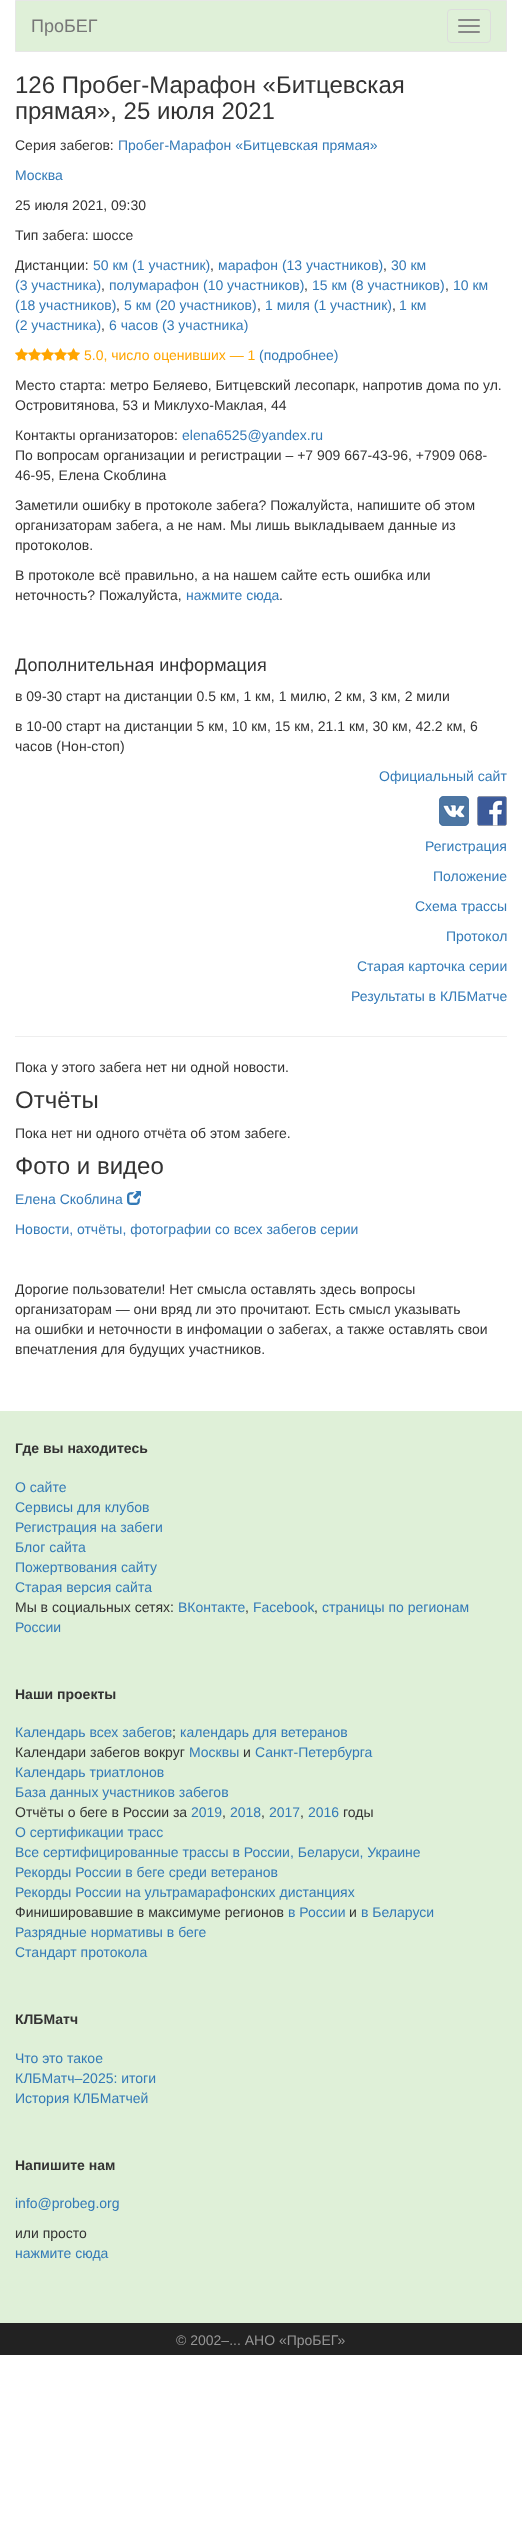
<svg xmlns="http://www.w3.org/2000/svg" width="522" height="2547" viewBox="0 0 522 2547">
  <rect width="100%" height="100%" fill="#fff"/>
  <path d="M15.5 0.5h491v51H15.5z" fill="#dff0d8" stroke="#e7e7e7"/>
  <rect x="447.5" y="9.5" width="43" height="33" rx="3.5" fill="none" stroke="#ddd"/>
  <rect x="458" y="19" width="22" height="2" rx="1" fill="#888"/>
  <rect x="458" y="25" width="22" height="2" rx="1" fill="#888"/>
  <rect x="458" y="31" width="22" height="2" rx="1" fill="#888"/>
  <image x="15" y="348" width="13" height="13" href="img/1.png"/>
  <image x="28" y="348" width="13" height="13" href="img/1.png"/>
  <image x="41" y="348" width="13" height="13" href="img/1.png"/>
  <image x="54" y="348" width="13" height="13" href="img/1.png"/>
  <image x="67" y="348" width="13" height="13" href="img/1.png"/>
  <image x="439" y="796" width="30" height="30" href="img/2.png"/>
  <image x="477" y="796" width="30" height="30" href="img/3.png"/>
  <path d="M15 1036h492v1H15z" fill="#eee"/>
  <image x="127" y="1191" width="14" height="14" href="img/4.png"/>
  <path d="M0 1411h522v912H0z" fill="#dff0d8"/>
  <path d="M0 2323h522v32H0z" fill="#222"/>
  <text x="31" y="32" font-family="Liberation Sans" font-size="18" fill="#777">ПроБЕГ</text>
  <g font-family="Liberation Sans" font-size="24" fill="#333">
    <text x="15" y="93">126 Пробег-Марафон «Битцевская</text>
    <text x="15" y="119">прямая», 25 июля 2021</text>
  </g>
  <text x="15" y="150" font-family="Liberation Sans" font-size="14" fill="#333">Серия забегов:</text>
  <g font-family="Liberation Sans" font-size="14" fill="#337ab7">
    <text x="118" y="150">Пробег-Марафон «Битцевская прямая»</text>
    <text x="15" y="180">Москва</text>
  </g>
  <g font-family="Liberation Sans" font-size="14" fill="#333">
    <text x="15" y="210">25 июля 2021, 09:30</text>
    <text x="15" y="240">Тип забега: шоссе</text>
    <text x="15" y="270">Дистанции:</text>
  </g>
  <text x="93" y="270" font-family="Liberation Sans" font-size="14" fill="#337ab7">50 км (1 участник)</text>
  <text x="210" y="270" font-family="Liberation Sans" font-size="14" fill="#333">,</text>
  <text x="218" y="270" font-family="Liberation Sans" font-size="14" fill="#337ab7">марафон (13 участников)</text>
  <text x="383" y="270" font-family="Liberation Sans" font-size="14" fill="#333">,</text>
  <g font-family="Liberation Sans" font-size="14" fill="#337ab7">
    <text x="391" y="270">30 км</text>
    <text x="15" y="290">(3 участника)</text>
  </g>
  <text x="101" y="290" font-family="Liberation Sans" font-size="14" fill="#333">,</text>
  <text x="109" y="290" font-family="Liberation Sans" font-size="14" fill="#337ab7">полумарафон (10 участников)</text>
  <text x="304" y="290" font-family="Liberation Sans" font-size="14" fill="#333">,</text>
  <text x="312" y="290" font-family="Liberation Sans" font-size="14" fill="#337ab7">15 км (8 участников)</text>
  <text x="445" y="290" font-family="Liberation Sans" font-size="14" fill="#333">,</text>
  <g font-family="Liberation Sans" font-size="14" fill="#337ab7">
    <text x="453" y="290">10 км</text>
    <text x="15" y="310">(18 участников)</text>
  </g>
  <text x="116" y="310" font-family="Liberation Sans" font-size="14" fill="#333">,</text>
  <text x="124" y="310" font-family="Liberation Sans" font-size="14" fill="#337ab7">5 км (20 участников)</text>
  <text x="257" y="310" font-family="Liberation Sans" font-size="14" fill="#333">,</text>
  <text x="265" y="310" font-family="Liberation Sans" font-size="14" fill="#337ab7">1 миля (1 участник)</text>
  <text x="392" y="310" font-family="Liberation Sans" font-size="14" fill="#333">,</text>
  <g font-family="Liberation Sans" font-size="14" fill="#337ab7">
    <text x="399" y="310">1 км</text>
    <text x="15" y="330">(2 участника)</text>
  </g>
  <text x="101" y="330" font-family="Liberation Sans" font-size="14" fill="#333">,</text>
  <text x="109" y="330" font-family="Liberation Sans" font-size="14" fill="#337ab7">6 часов (3 участника)</text>
  <text x="84" y="360" font-family="Liberation Sans" font-size="14" fill="#ffa500">5.0, число оценивших — 1</text>
  <text x="259" y="360" font-family="Liberation Sans" font-size="14" fill="#337ab7">(подробнее)</text>
  <g font-family="Liberation Sans" font-size="14" fill="#333">
    <text x="15" y="390">Место старта: метро Беляево, Битцевский лесопарк, напротив дома по ул.</text>
    <text x="15" y="410">Островитянова, 53 и Миклухо-Маклая, 44</text>
    <text x="15" y="440">Контакты организаторов:</text>
  </g>
  <text x="182" y="440" font-family="Liberation Sans" font-size="14" fill="#337ab7">elena6525@yandex.ru</text>
  <g font-family="Liberation Sans" font-size="14" fill="#333">
    <text x="15" y="460">По вопросам организации и регистрации – +7 909 667-43-96, +7909 068-</text>
    <text x="15" y="480">46-95, Елена Скоблина</text>
    <text x="15" y="510">Заметили ошибку в протоколе забега? Пожалуйста, напишите об этом</text>
    <text x="15" y="530">организаторам забега, а не нам. Мы лишь выкладываем данные из</text>
    <text x="15" y="550">протоколов.</text>
    <text x="15" y="580">В протоколе всё правильно, а на нашем сайте есть ошибка или</text>
    <text x="15" y="600">неточность? Пожалуйста,</text>
  </g>
  <text x="186" y="600" font-family="Liberation Sans" font-size="14" fill="#337ab7">нажмите сюда</text>
  <text x="279" y="600" font-family="Liberation Sans" font-size="14" fill="#333">.</text>
  <text x="15" y="671" font-family="Liberation Sans" font-size="18" fill="#333">Дополнительная информация</text>
  <g font-family="Liberation Sans" font-size="14" fill="#333">
    <text x="15" y="701">в 09-30 старт на дистанции 0.5 км, 1 км, 1 милю, 2 км, 3 км, 2 мили</text>
    <text x="15" y="731">в 10-00 старт на дистанции 5 км, 10 км, 15 км, 21.1 км, 30 км, 42.2 км, 6</text>
    <text x="15" y="751">часов (Нон-стоп)</text>
  </g>
  <g font-family="Liberation Sans" font-size="14" fill="#337ab7">
    <text x="379" y="781">Официальный сайт</text>
    <text x="425" y="851">Регистрация</text>
    <text x="433" y="881">Положение</text>
    <text x="415" y="911">Схема трассы</text>
    <text x="446" y="941">Протокол</text>
    <text x="357" y="971">Старая карточка серии</text>
    <text x="351" y="1001">Результаты в КЛБМатче</text>
  </g>
  <text x="15" y="1072" font-family="Liberation Sans" font-size="14" fill="#333">Пока у этого забега нет ни одной новости.</text>
  <text x="15" y="1108" font-family="Liberation Sans" font-size="24" fill="#333">Отчёты</text>
  <text x="15" y="1138" font-family="Liberation Sans" font-size="14" fill="#333">Пока нет ни одного отчёта об этом забеге.</text>
  <text x="15" y="1174" font-family="Liberation Sans" font-size="24" fill="#333">Фото и видео</text>
  <g font-family="Liberation Sans" font-size="14" fill="#337ab7">
    <text x="15" y="1204">Елена Скоблина</text>
    <text x="15" y="1234">Новости, отчёты, фотографии со всех забегов серии</text>
  </g>
  <g font-family="Liberation Sans" font-size="14" fill="#333">
    <text x="15" y="1294">Дорогие пользователи! Нет смысла оставлять здесь вопросы</text>
    <text x="15" y="1314">организаторам — они вряд ли это прочитают. Есть смысл указывать</text>
    <text x="15" y="1334">на ошибки и неточности в инфомации о забегах, а также оставлять свои</text>
    <text x="15" y="1354">впечатления для будущих участников.</text>
  </g>
  <text x="15" y="1453" font-family="Liberation Sans" font-size="14" font-weight="bold" fill="#333">Где вы находитесь</text>
  <g font-family="Liberation Sans" font-size="14" fill="#337ab7">
    <text x="15" y="1492">О сайте</text>
    <text x="15" y="1512">Сервисы для клубов</text>
    <text x="15" y="1532">Регистрация на забеги</text>
    <text x="15" y="1552">Блог сайта</text>
    <text x="15" y="1572">Пожертвования сайту</text>
    <text x="15" y="1592">Старая версия сайта</text>
  </g>
  <text x="15" y="1612" font-family="Liberation Sans" font-size="14" fill="#333">Мы в социальных сетях:</text>
  <text x="178" y="1612" font-family="Liberation Sans" font-size="14" fill="#337ab7">ВКонтакте</text>
  <text x="245" y="1612" font-family="Liberation Sans" font-size="14" fill="#333">,</text>
  <text x="253" y="1612" font-family="Liberation Sans" font-size="14" fill="#337ab7">Facebook</text>
  <text x="314" y="1612" font-family="Liberation Sans" font-size="14" fill="#333">,</text>
  <g font-family="Liberation Sans" font-size="14" fill="#337ab7">
    <text x="322" y="1612">страницы по регионам</text>
    <text x="15" y="1632">России</text>
  </g>
  <text x="15" y="1699" font-family="Liberation Sans" font-size="14" font-weight="bold" fill="#333">Наши проекты</text>
  <text x="15" y="1737" font-family="Liberation Sans" font-size="14" fill="#337ab7">Календарь всех забегов</text>
  <text x="172" y="1737" font-family="Liberation Sans" font-size="14" fill="#333">;</text>
  <text x="180" y="1737" font-family="Liberation Sans" font-size="14" fill="#337ab7">календарь для ветеранов</text>
  <text x="15" y="1757" font-family="Liberation Sans" font-size="14" fill="#333">Календари забегов вокруг</text>
  <text x="189" y="1757" font-family="Liberation Sans" font-size="14" fill="#337ab7">Москвы</text>
  <text x="243" y="1757" font-family="Liberation Sans" font-size="14" fill="#333">и</text>
  <g font-family="Liberation Sans" font-size="14" fill="#337ab7">
    <text x="255" y="1757">Санкт-Петербурга</text>
    <text x="15" y="1777">Календарь триатлонов</text>
    <text x="15" y="1797">База данных участников забегов</text>
  </g>
  <text x="15" y="1817" font-family="Liberation Sans" font-size="14" fill="#333">Отчёты о беге в России за</text>
  <text x="191" y="1817" font-family="Liberation Sans" font-size="14" fill="#337ab7">2019</text>
  <text x="222" y="1817" font-family="Liberation Sans" font-size="14" fill="#333">,</text>
  <text x="230" y="1817" font-family="Liberation Sans" font-size="14" fill="#337ab7">2018</text>
  <text x="261" y="1817" font-family="Liberation Sans" font-size="14" fill="#333">,</text>
  <text x="269" y="1817" font-family="Liberation Sans" font-size="14" fill="#337ab7">2017</text>
  <text x="300" y="1817" font-family="Liberation Sans" font-size="14" fill="#333">,</text>
  <text x="308" y="1817" font-family="Liberation Sans" font-size="14" fill="#337ab7">2016</text>
  <text x="343" y="1817" font-family="Liberation Sans" font-size="14" fill="#333">годы</text>
  <g font-family="Liberation Sans" font-size="14" fill="#337ab7">
    <text x="15" y="1837">О сертификации трасс</text>
    <text x="15" y="1857">Все сертифицированные трассы в России, Беларуси, Украине</text>
    <text x="15" y="1877">Рекорды России в беге среди ветеранов</text>
    <text x="15" y="1897">Рекорды России на ультрамарафонских дистанциях</text>
  </g>
  <text x="15" y="1917" font-family="Liberation Sans" font-size="14" fill="#333">Финишировавшие в максимуме регионов</text>
  <text x="288" y="1917" font-family="Liberation Sans" font-size="14" fill="#337ab7">в России</text>
  <text x="349" y="1917" font-family="Liberation Sans" font-size="14" fill="#333">и</text>
  <g font-family="Liberation Sans" font-size="14" fill="#337ab7">
    <text x="361" y="1917">в Беларуси</text>
    <text x="15" y="1937">Разрядные нормативы в беге</text>
    <text x="15" y="1957">Стандарт протокола</text>
  </g>
  <text x="15" y="2024" font-family="Liberation Sans" font-size="14" font-weight="bold" fill="#333">КЛБМатч</text>
  <g font-family="Liberation Sans" font-size="14" fill="#337ab7">
    <text x="15" y="2063">Что это такое</text>
    <text x="15" y="2083">КЛБМатч–2025: итоги</text>
    <text x="15" y="2103">История КЛБМатчей</text>
  </g>
  <text x="15" y="2170" font-family="Liberation Sans" font-size="14" font-weight="bold" fill="#333">Напишите нам</text>
  <text x="15" y="2208" font-family="Liberation Sans" font-size="14" fill="#337ab7">info@probeg.org</text>
  <text x="15" y="2238" font-family="Liberation Sans" font-size="14" fill="#333">или просто</text>
  <text x="15" y="2258" font-family="Liberation Sans" font-size="14" fill="#337ab7">нажмите сюда</text>
  <text x="176" y="2345" font-family="Liberation Sans" font-size="14" fill="#969696">© 2002–... АНО «ПроБЕГ»</text>
</svg>
